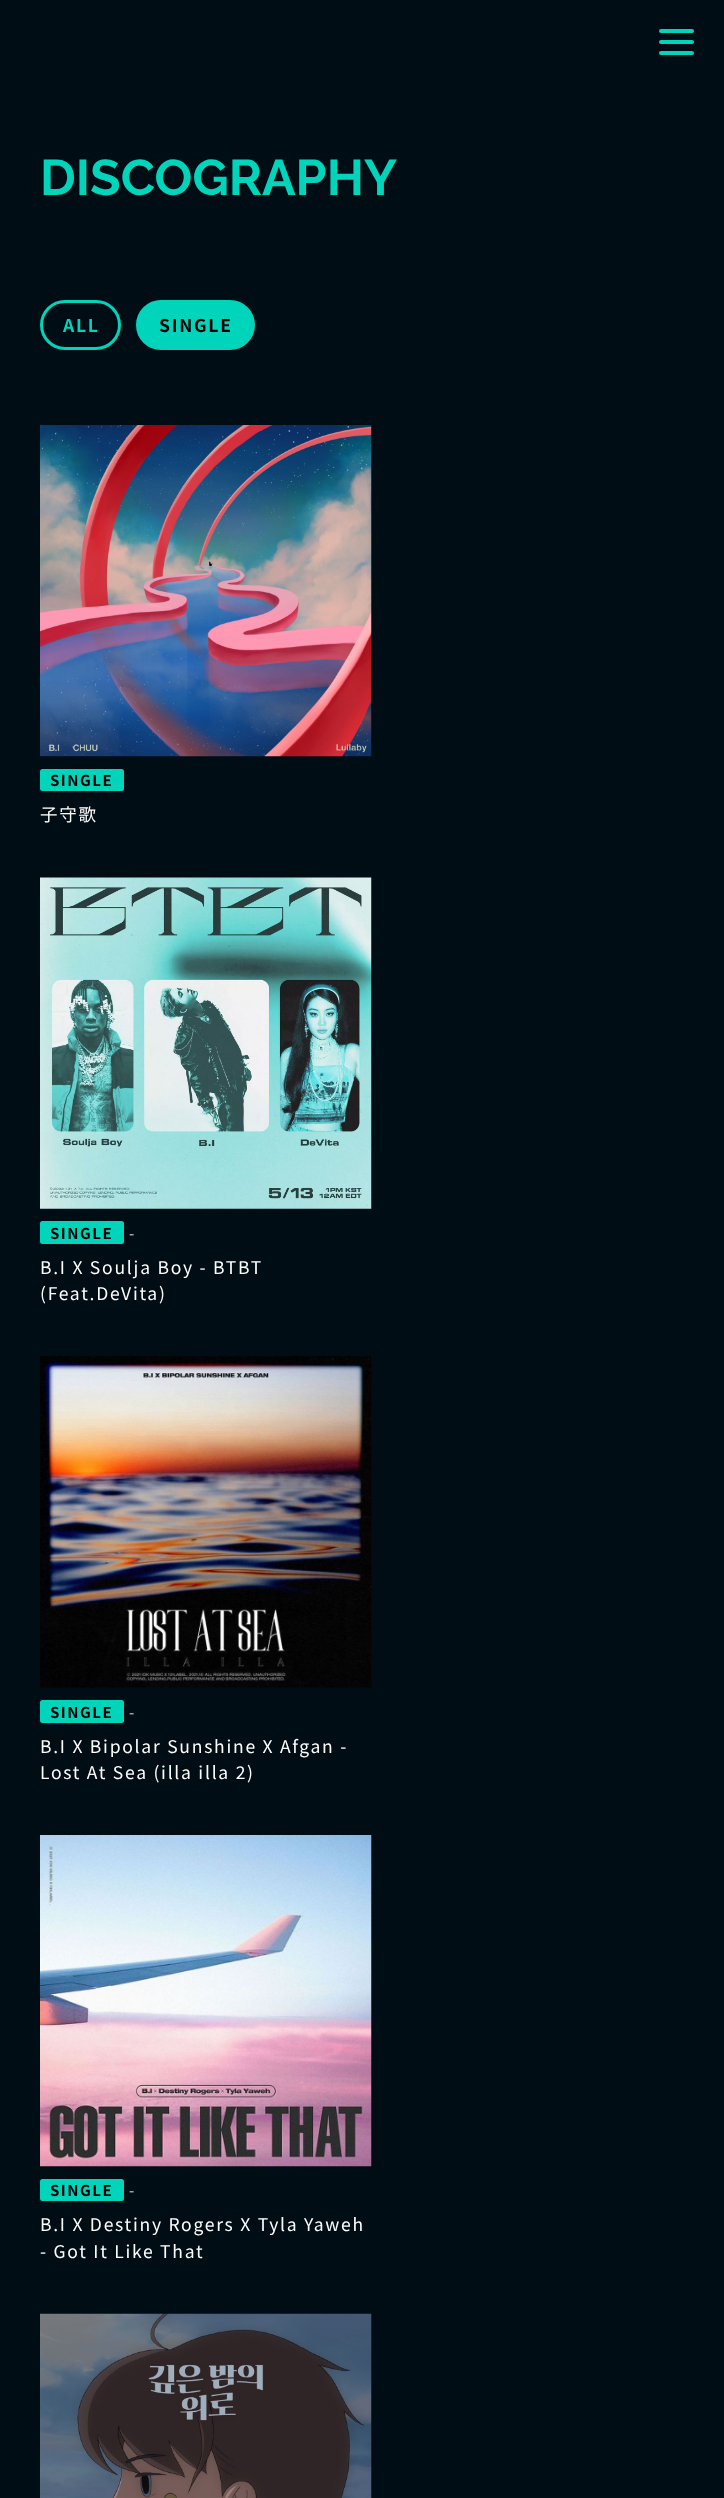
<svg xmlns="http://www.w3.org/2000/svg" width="724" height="2498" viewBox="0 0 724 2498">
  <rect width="100%" height="100%" fill="#000d14"/>
  <rect x="659" y="29" width="35" height="4" rx="2" fill="#00d4bb"/>
  <rect x="659" y="40" width="35" height="4" rx="2" fill="#00d4bb"/>
  <rect x="659" y="51" width="35" height="4" rx="2" fill="#00d4bb"/>
  <rect x="41.5" y="301.5" width="78" height="47" rx="23.5" fill="none" stroke="#00d4bb" stroke-width="3"/>
  <rect x="137.5" y="301.5" width="116" height="47" rx="23.5" fill="#00d4bb" stroke="#00d4bb" stroke-width="3"/>
  <image x="40" y="425" width="332" height="332" href="img/1.png"/>
  <rect x="40" y="769" width="84" height="22" rx="2.5" fill="#00d4bb"/>
  <image x="40" y="877" width="332" height="332" href="img/2.png"/>
  <rect x="40" y="1221" width="84" height="23" rx="2.5" fill="#00d4bb"/>
  <image x="40" y="1356" width="332" height="332" href="img/3.png"/>
  <rect x="40" y="1700" width="84" height="23" rx="2.5" fill="#00d4bb"/>
  <image x="40" y="1835" width="332" height="332" href="img/4.png"/>
  <rect x="40" y="2179" width="84" height="22" rx="2.5" fill="#00d4bb"/>
  <image x="40" y="2313" width="332" height="185" href="img/5.png"/>
  <text x="40" y="195" font-family="Raleway" font-size="50" font-weight="bold" fill="#00d4bb">DISCOGRAPHY</text>
  <text x="63" y="332" font-family="Noto Sans JP" font-size="17.5" font-weight="bold" letter-spacing="1.75" fill="#00d4bb">ALL</text>
  <text x="159" y="332" font-family="Noto Sans JP" font-size="17.5" font-weight="bold" letter-spacing="1.75" fill="#000">SINGLE</text>
  <text x="50" y="786" font-family="Noto Sans JP" font-size="15" font-weight="bold" letter-spacing="1.5" fill="#000">SINGLE</text>
  <text x="40" y="821" font-family="Noto Sans JP" font-size="17.5" letter-spacing="1.75" fill="#fff">子守歌</text>
  <text x="50" y="1239" font-family="Noto Sans JP" font-size="15" font-weight="bold" letter-spacing="1.5" fill="#000">SINGLE</text>
  <text x="129" y="1239" font-family="Noto Sans JP" font-size="15" fill="#d4d3d3">-</text>
  <g font-family="Noto Sans JP" font-size="17.5" letter-spacing="1.75" fill="#fff">
    <text x="40" y="1274">B.I X Soulja Boy - BTBT</text>
    <text x="40" y="1300">(Feat.DeVita)</text>
  </g>
  <text x="50" y="1718" font-family="Noto Sans JP" font-size="15" font-weight="bold" letter-spacing="1.5" fill="#000">SINGLE</text>
  <text x="129" y="1718" font-family="Noto Sans JP" font-size="15" fill="#d4d3d3">-</text>
  <g font-family="Noto Sans JP" font-size="17.5" letter-spacing="1.75" fill="#fff">
    <text x="40" y="1753">B.I X Bipolar Sunshine X Afgan -</text>
    <text x="40" y="1779">Lost At Sea (illa illa 2)</text>
  </g>
  <text x="50" y="2196" font-family="Noto Sans JP" font-size="15" font-weight="bold" letter-spacing="1.5" fill="#000">SINGLE</text>
  <text x="129" y="2196" font-family="Noto Sans JP" font-size="15" fill="#d4d3d3">-</text>
  <g font-family="Noto Sans JP" font-size="17.5" letter-spacing="1.75" fill="#fff">
    <text x="40" y="2231">B.I X Destiny Rogers X Tyla Yaweh</text>
    <text x="40" y="2258">- Got It Like That</text>
  </g>
</svg>
